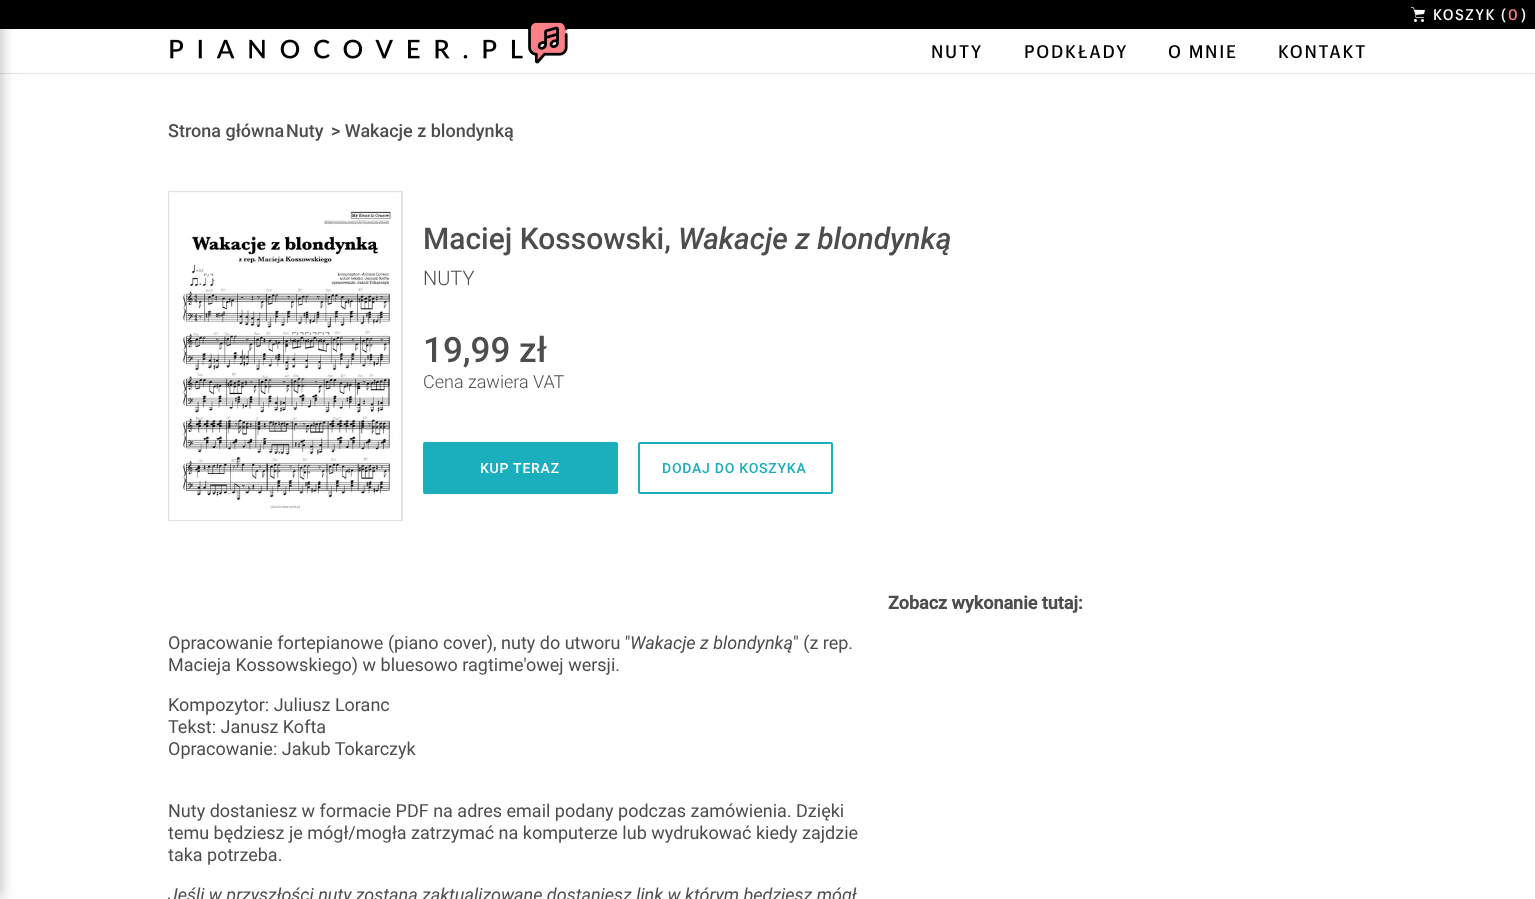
<svg xmlns="http://www.w3.org/2000/svg" width="1535" height="899" viewBox="0 0 1535 899">
  <rect width="100%" height="100%" fill="#fff"/>
  <path d="M0 73h1535v1H0z" fill="#e1e1e1"/>
  <path d="M0 0h1535v29H0z" fill="#000"/>
  <path d="M-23 0h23v899H-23z" fill="#0000004d" filter="blur(7.5px)"/>
  <image x="1411" y="7" width="14" height="15" href="img/1.png"/>
  <image x="170" y="22" width="398" height="42" href="img/2.png"/>
  <path d="M168.5 191.5h234v329H168.5z" fill="none" stroke="#e1e1e1"/>
  <image x="169" y="192" width="233" height="328" href="img/3.png"/>
  <rect x="424" y="443" width="193" height="50" rx="1" fill="#1bafbd" stroke="#1bafbd" stroke-width="2"/>
  <rect x="639" y="443" width="193" height="50" rx="1" fill="none" stroke="#1bafbd" stroke-width="2"/>
  <text x="1433" y="20" font-family="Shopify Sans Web" font-size="15" font-weight="500" letter-spacing="1.5" fill="#fff">KOSZYK (</text>
  <text x="1508" y="20" font-family="Shopify Sans Web" font-size="15" font-weight="500" letter-spacing="1.5" fill="#fd8087">0</text>
  <text x="1521" y="20" font-family="Shopify Sans Web" font-size="15" font-weight="500" letter-spacing="1.5" fill="#fff">)</text>
  <g font-family="Shopify Sans Web" font-size="18" font-weight="500" letter-spacing="1.75" fill="#000">
    <text x="931" y="58">NUTY</text>
    <text x="1024" y="58">PODKŁADY</text>
    <text x="1168" y="58">O MNIE</text>
    <text x="1278" y="58">KONTAKT</text>
  </g>
  <g font-family="Roboto" font-size="18" font-weight="500" fill="#4d4d4d">
    <text x="168" y="137">Strona główna</text>
    <text x="286" y="137">Nuty</text>
    <text x="331" y="137">&gt; Wakacje z blondynką</text>
  </g>
  <text x="423" y="249" font-family="Roboto" font-size="30" font-weight="500" fill="#4d4d4d">Maciej Kossowski,</text>
  <text x="678" y="249" font-family="Roboto" font-size="30" font-weight="500" font-style="italic" fill="#4d4d4d">Wakacje z blondynką</text>
  <text x="423" y="285" font-family="Roboto" font-size="20" font-weight="300" fill="#4d4d4d">NUTY</text>
  <text x="423" y="362" font-family="Roboto" font-size="35" font-weight="500" fill="#4d4d4d">19,99 zł</text>
  <text x="423" y="388" font-family="Roboto" font-size="18" font-weight="300" fill="#4d4d4d">Cena zawiera VAT</text>
  <text x="480" y="473" font-family="Roboto" font-size="14" font-weight="500" letter-spacing="0.75" fill="#fff">KUP TERAZ</text>
  <text x="662" y="473" font-family="Roboto" font-size="14" font-weight="500" letter-spacing="0.75" fill="#1bafbd">DODAJ DO KOSZYKA</text>
  <text x="888" y="609" font-family="Roboto" font-size="18" font-weight="bold" fill="#4d4d4d">Zobacz wykonanie tutaj:</text>
  <text x="168" y="649" font-family="Roboto" font-size="18" fill="#4d4d4d">Opracowanie fortepianowe (piano cover), nuty do utworu "</text>
  <text x="630" y="649" font-family="Roboto" font-size="18" font-style="italic" fill="#4d4d4d">Wakacje z blondynką</text>
  <g font-family="Roboto" font-size="18" fill="#4d4d4d">
    <text x="793" y="649">" (z rep.</text>
    <text x="168" y="671">Macieja Kossowskiego) w bluesowo ragtime'owej wersji.</text>
    <text x="168" y="711">Kompozytor: Juliusz Loranc</text>
    <text x="168" y="733">Tekst: Janusz Kofta</text>
    <text x="168" y="755">Opracowanie: Jakub Tokarczyk</text>
    <text x="168" y="817">Nuty dostaniesz w formacie PDF na adres email podany podczas zamówienia. Dzięki</text>
    <text x="168" y="839">temu będziesz je mógł/mogła zatrzymać na komputerze lub wydrukować kiedy zajdzie</text>
    <text x="168" y="861">taka potrzeba.</text>
  </g>
  <text x="168" y="901" font-family="Roboto" font-size="18" font-style="italic" fill="#4d4d4d">Jeśli w przyszłości nuty zostaną zaktualizowane dostaniesz link w którym będziesz mógł</text>
</svg>
